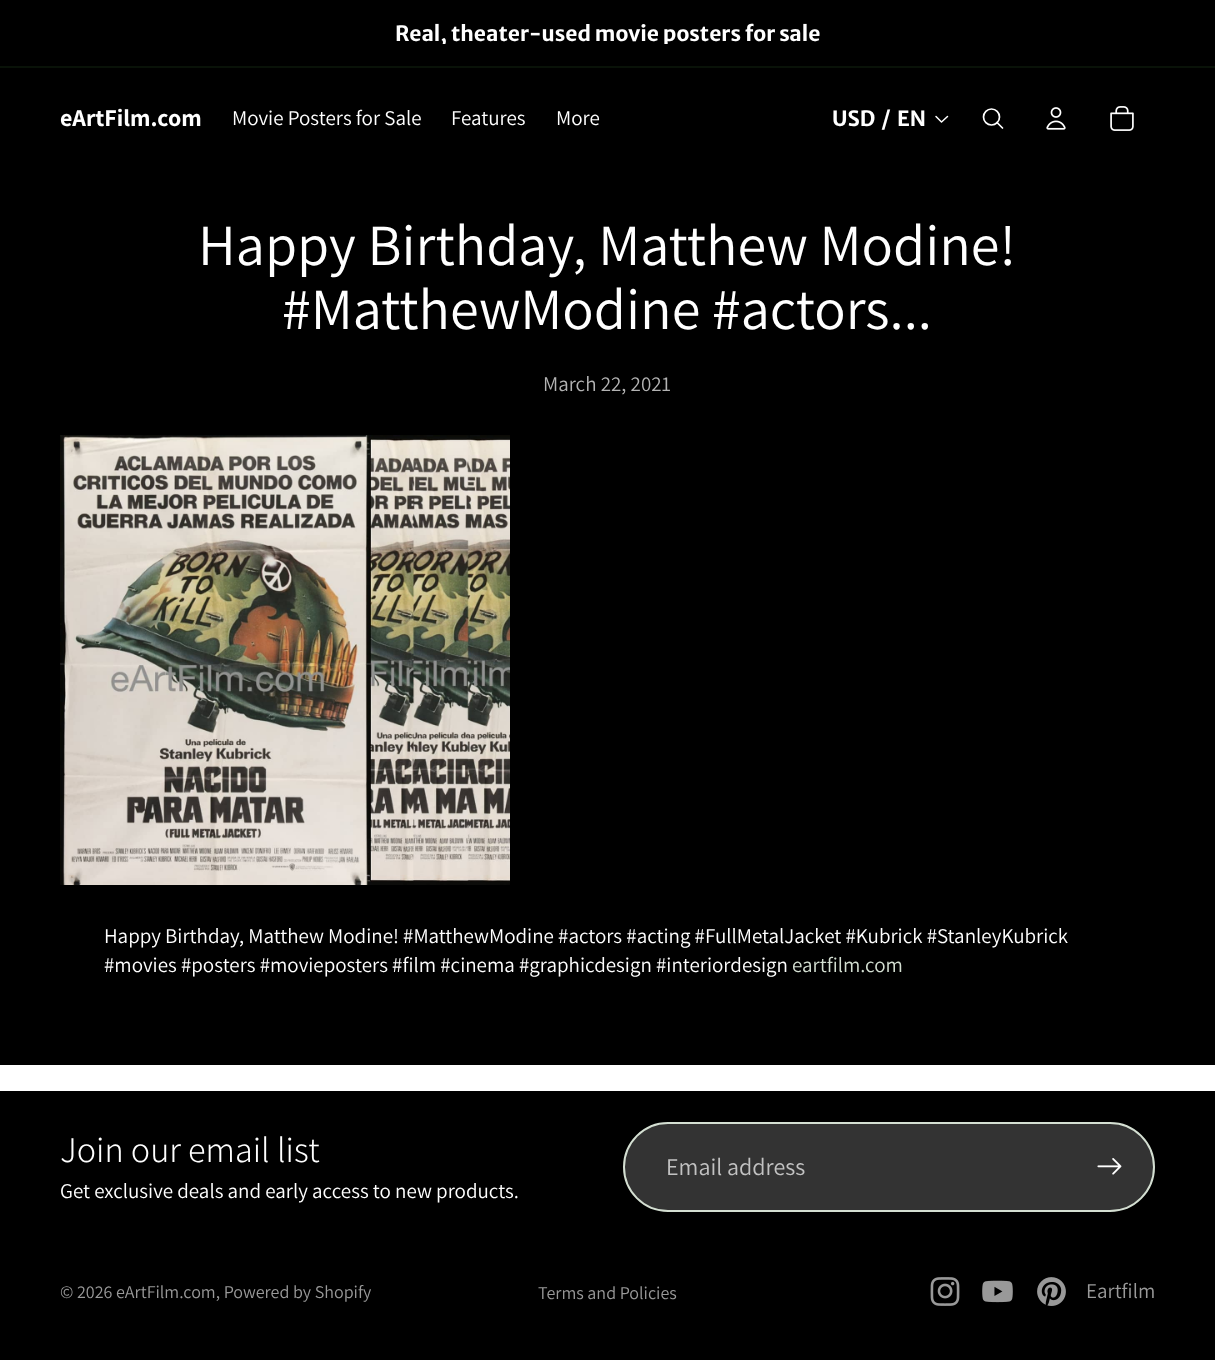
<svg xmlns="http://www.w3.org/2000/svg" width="1215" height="1360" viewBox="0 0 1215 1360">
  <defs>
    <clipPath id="clip1"><path d="M126 23h963v21H126z"/></clipPath>
  </defs>
  <rect width="100%" height="100%" fill="#fff"/>
  <path d="M0 0h1215v66H0z" fill="#000"/>
  <path d="M0 66h1215v2H0z" fill="#091208"/>
  <path d="M0 68h1215v997H0z" fill="#000"/>
  <path d="M947.5 116.5L941.5 122L936 116.5" fill="none" stroke="#fff" stroke-width="1.5" stroke-linecap="round" stroke-linejoin="round"/>
  <circle cx="991.5" cy="117" r="8" fill="none" stroke="#fff" stroke-width="1.7"/>
  <path d="M997 122.5L1002.5 128" fill="none" stroke="#fff" stroke-width="1.7" stroke-linecap="round" stroke-linejoin="round"/>
  <image x="1046" y="107" width="20" height="23" href="img/1.png"/>
  <image x="1110" y="106" width="24" height="25" href="img/2.png"/>
  <image x="60" y="435" width="450" height="450" href="img/3.png"/>
  <path d="M0 1091h1215v269H0z" fill="#000"/>
  <rect x="624" y="1123" width="530" height="88" rx="44" fill="#333" stroke="#d4dfd2" stroke-width="2"/>
  <image x="1097" y="1158" width="25" height="17" href="img/4.png"/>
  <image x="930" y="1277" width="30" height="29" href="img/5.png"/>
  <image x="982" y="1280" width="31" height="23" href="img/6.png"/>
  <image x="1037" y="1277" width="29" height="29" href="img/7.png"/>
  <g clip-path="url(#clip1)">
    <text x="395" y="41" font-family="Merriweather Sans" font-size="21" font-weight="bold" fill="#fff">Real, theater-used movie posters for sale</text>
  </g>
  <text x="60" y="126" font-family="Assistant" font-size="24" font-weight="bold" fill="#fff">eArtFilm.com</text>
  <g font-family="Assistant" font-size="21" fill="#fff">
    <text x="232" y="125">Movie Posters for Sale</text>
    <text x="451" y="125">Features</text>
    <text x="556" y="125">More</text>
  </g>
  <g font-family="Merriweather Sans" font-size="21" font-weight="bold" fill="#fff">
    <text x="832" y="126">USD</text>
    <text x="881" y="126">/</text>
    <text x="897" y="126">EN</text>
  </g>
  <g font-family="Assistant" font-size="58.25" fill="#fff">
    <text x="198" y="265">Happy Birthday, Matthew Modine!</text>
    <text x="282" y="329">#MatthewModine #actors...</text>
  </g>
  <text x="543" y="391" font-family="Assistant" font-size="21" fill="#b3b3b3">March 22, 2021</text>
  <g font-family="Assistant" font-size="21" fill="#fff">
    <text x="104" y="943">Happy Birthday, Matthew Modine! #MatthewModine #actors #acting #FullMetalJacket #Kubrick #StanleyKubrick</text>
    <text x="104" y="972">#movies #posters #movieposters #film #cinema #graphicdesign #interiordesign</text>
  </g>
  <text x="792" y="972" font-family="Assistant" font-size="21" fill="#d4dfd2">eartfilm.com</text>
  <text x="60" y="1162" font-family="Assistant" font-size="36" font-weight="300" fill="#fff">Join our email list</text>
  <text x="60" y="1198" font-family="Assistant" font-size="21" fill="#fff">Get exclusive deals and early access to new products.</text>
  <text x="666" y="1175" font-family="Assistant" font-size="24" fill="#c2c2c2">Email address</text>
  <g font-family="Assistant" font-size="18" fill="#999">
    <text x="60" y="1298">© 2026 eArtFilm.com, Powered by Shopify</text>
    <text x="538" y="1299">Terms and Policies</text>
  </g>
  <text x="1086" y="1298" font-family="Assistant" font-size="21" fill="#999">Eartfilm</text>
</svg>
